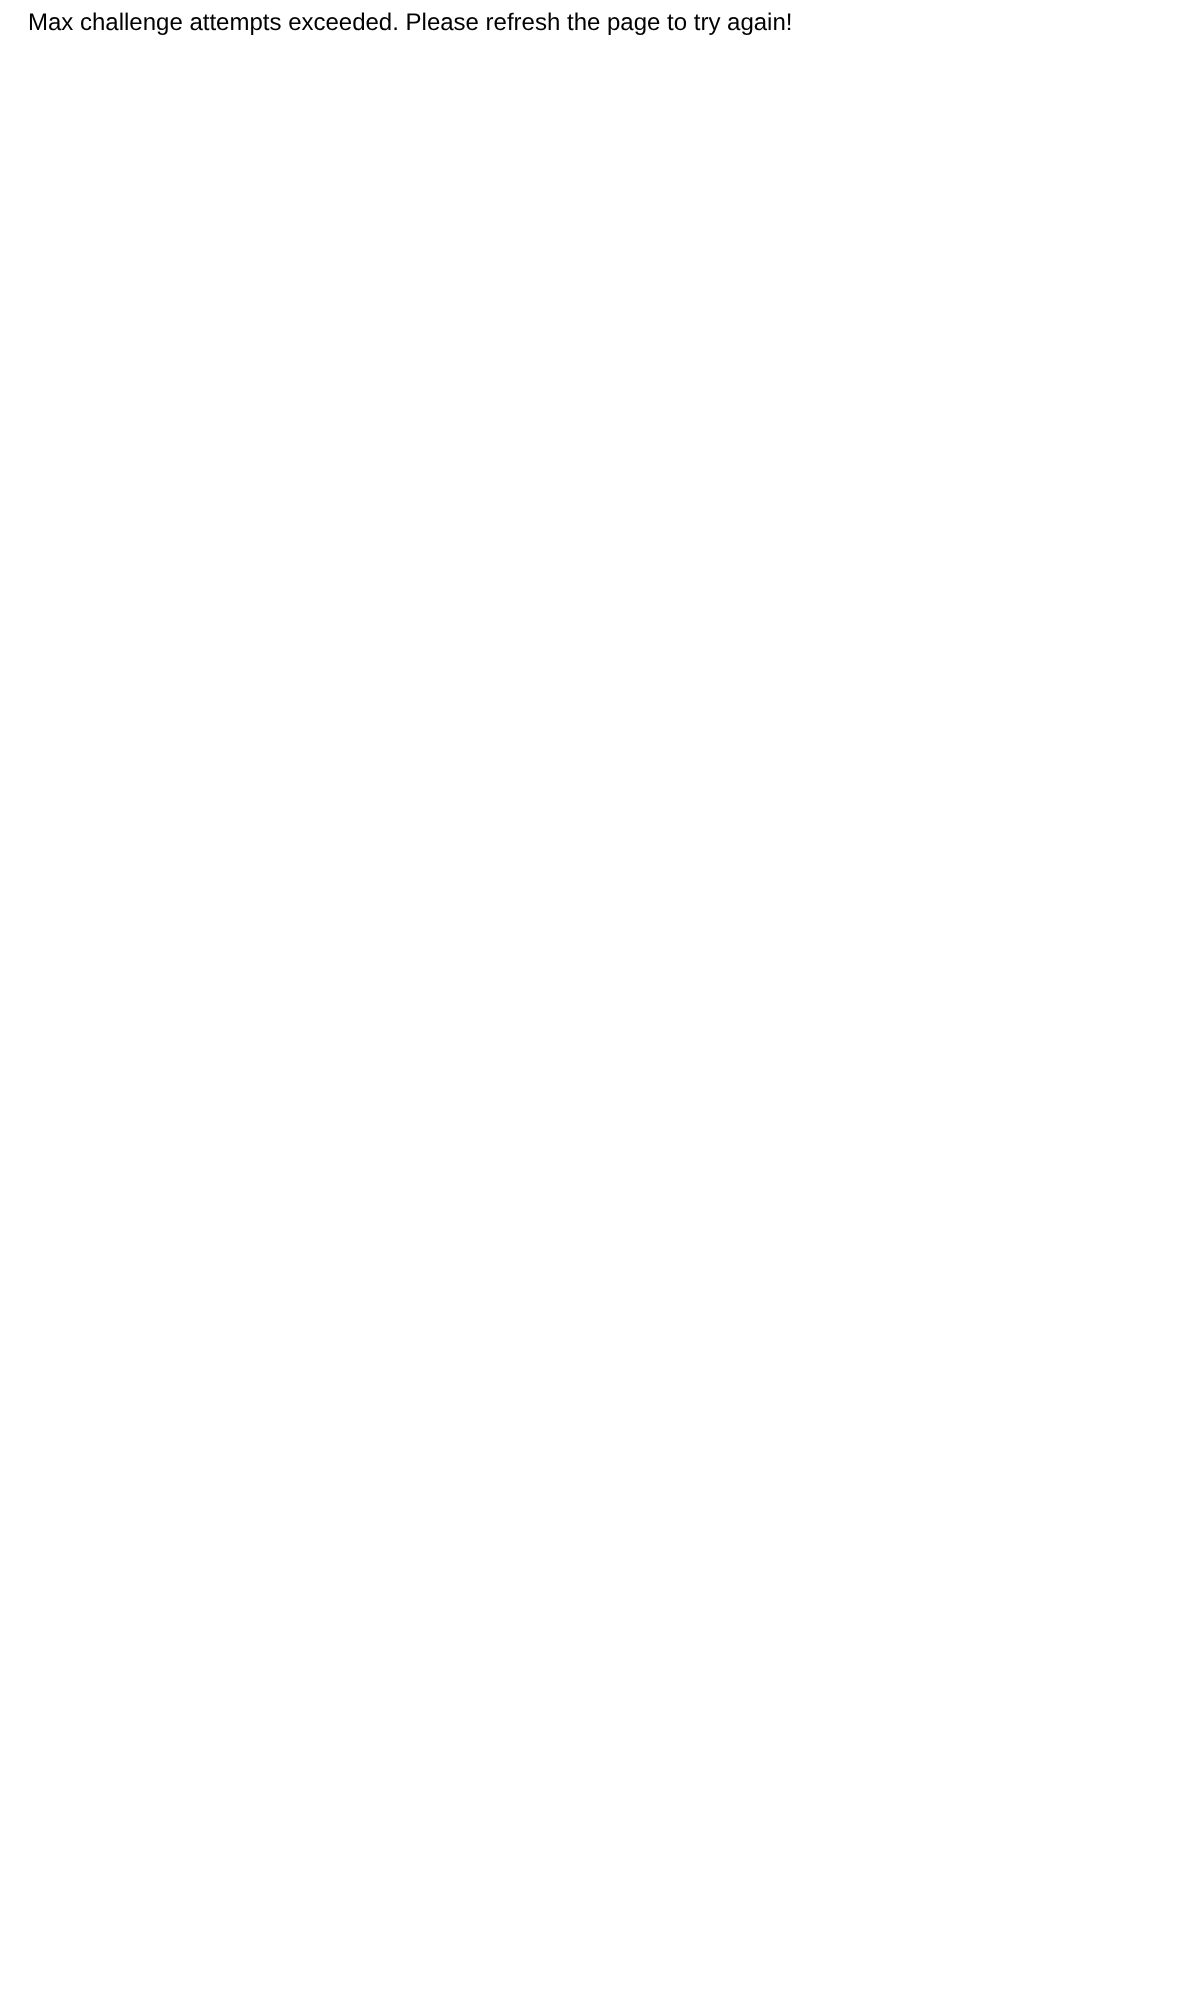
<svg xmlns="http://www.w3.org/2000/svg" width="1194" height="2011" viewBox="0 0 1194 2011">
  <rect width="100%" height="100%" fill="#fff"/>
  <text x="28" y="30" font-family="Liberation Sans" font-size="24" fill="#000">Max challenge attempts exceeded. Please refresh the page to try again!</text>
</svg>
